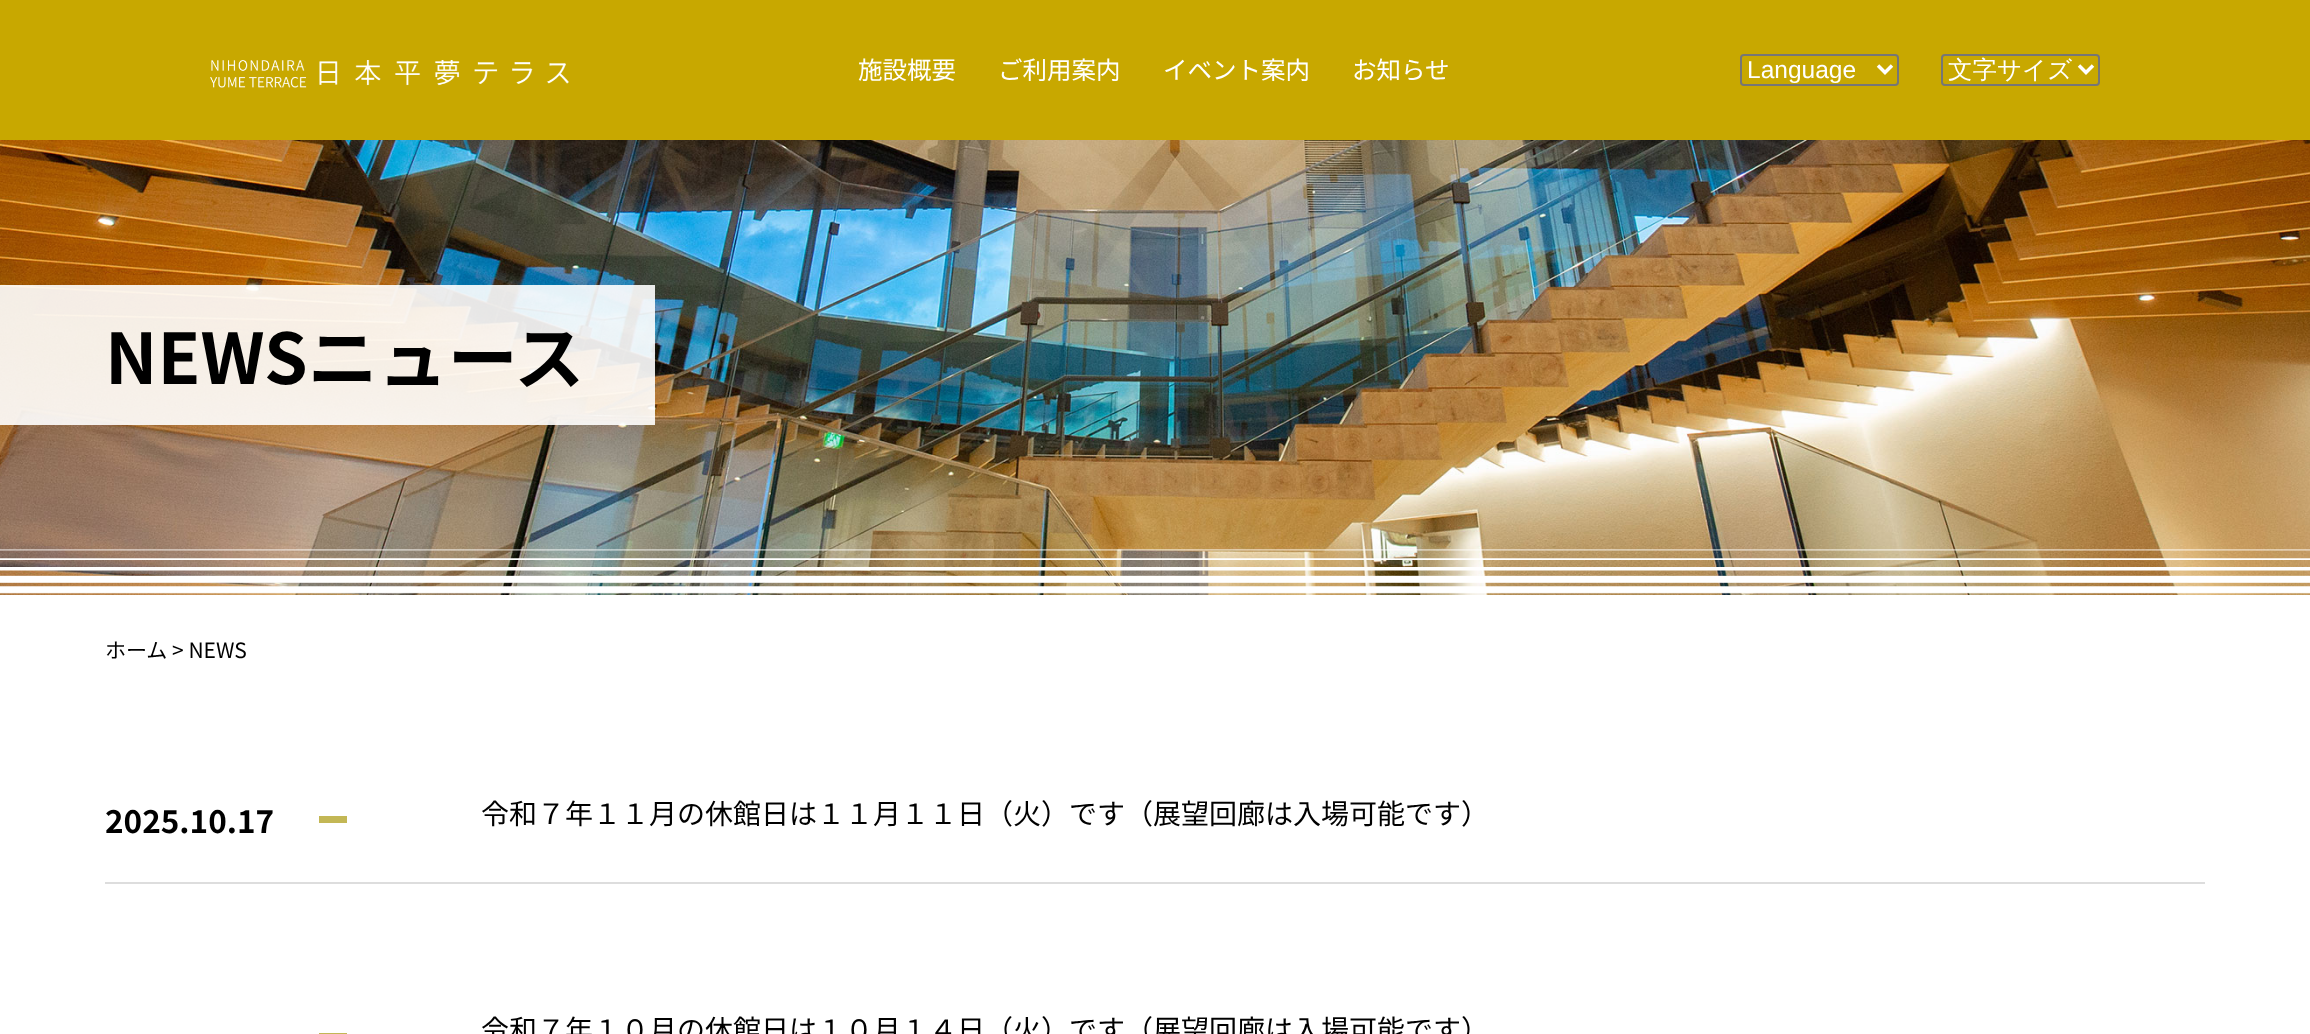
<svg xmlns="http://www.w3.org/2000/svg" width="2310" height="1034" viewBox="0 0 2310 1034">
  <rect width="100%" height="100%" fill="#fff"/>
  <path d="M0 0h2310v140H0z" fill="#c8a800"/>
  <image x="210" y="60" width="359" height="28" href="img/1.png"/>
  <rect x="1741" y="55" width="157" height="30" rx="3" fill="none" stroke="#767676" stroke-width="2"/>
  <path d="M1878 65.5L1885 72.5L1892 65.5" fill="none" stroke="#fff" stroke-width="3.5"/>
  <rect x="1942" y="55" width="157" height="30" rx="3" fill="none" stroke="#767676" stroke-width="2"/>
  <path d="M2079 65.5L2086 72.5L2093 65.5" fill="none" stroke="#fff" stroke-width="3.5"/>
  <image x="0" y="140" width="2310" height="455" href="img/2.png"/>
  <path d="M105 285h550v140H105z" fill="#ffffffe6"/>
  <path d="M0 285h105v140H0z" fill="#ffffffe6"/>
  <image x="0" y="549" width="2310" height="45" href="img/3.png"/>
  <path d="M105 882h2100v2H105z" fill="#ddd"/>
  <path d="M319 816h28v7H319z" fill="#c3b755"/>
  <path d="M319 1033h28v1H319z" fill="#c3b755"/>
  <g font-family="Noto Sans JP" font-size="24.5" fill="#fff">
    <text x="858" y="79">施設概要</text>
    <text x="998" y="79">ご利用案内</text>
    <text x="1163" y="79">イベント案内</text>
    <text x="1352" y="79">お知らせ</text>
  </g>
  <text x="1747" y="78" font-family="Liberation Sans" font-size="24.5" fill="#fff">Language</text>
  <text x="1948" y="78" font-family="WenQuanYi Zen Hei" font-size="24.5" font-weight="500" fill="#fff">文字サイズ</text>
  <text x="105" y="384" font-family="Noto Sans JP" font-size="70" font-weight="bold" fill="#000">NEWSニュース</text>
  <text x="105" y="658" font-family="Noto Sans JP" font-size="21" fill="#000">ホーム &gt; NEWS</text>
  <text x="105" y="833" font-family="Noto Sans JP" font-size="31.5" font-weight="bold" fill="#000">2025.10.17</text>
  <g font-family="Noto Sans JP" font-size="28" fill="#000">
    <text x="481" y="824">令和７年１１月の休館日は１１月１１日（火）です（展望回廊は入場可能です）</text>
    <text x="481" y="1040">令和７年１０月の休館日は１０月１４日（火）です（展望回廊は入場可能です）</text>
  </g>
</svg>
